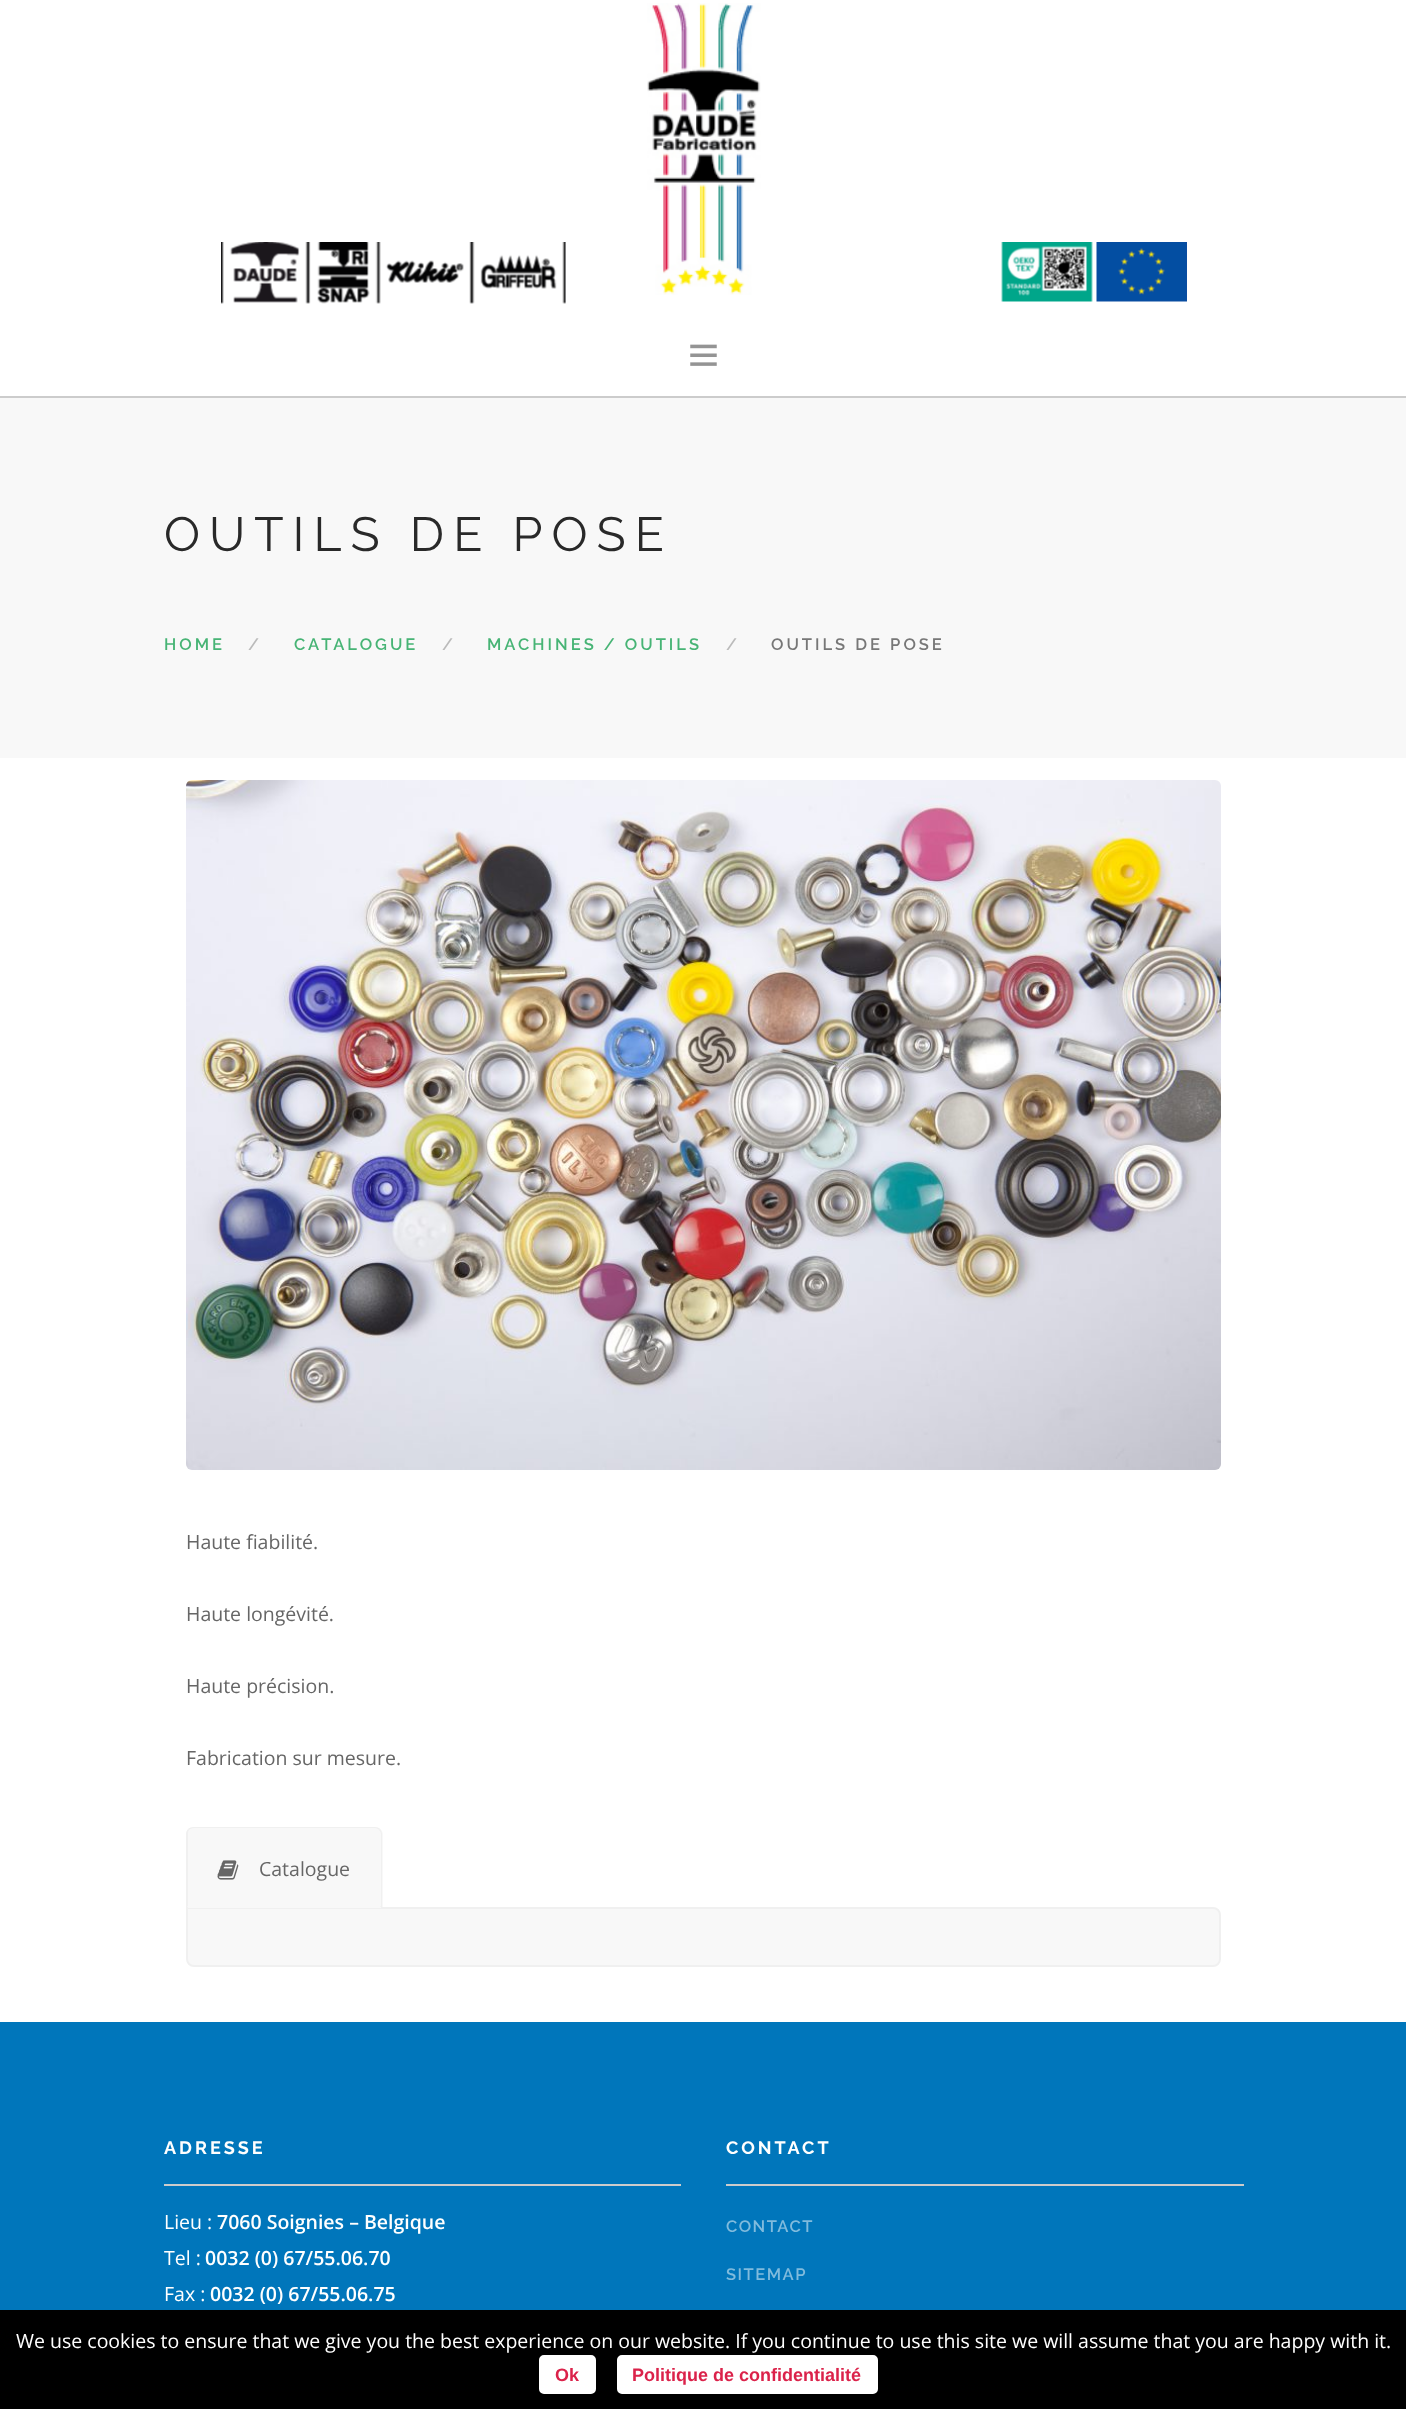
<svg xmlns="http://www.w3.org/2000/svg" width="1406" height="2409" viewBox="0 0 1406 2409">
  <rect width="100%" height="100%" fill="#fff"/>
  <image x="647" y="3" width="114" height="292" href="img/1.png"/>
  <image x="221" y="242" width="345" height="62" href="img/2.png"/>
  <image x="1001" y="242" width="92" height="60" href="img/3.png"/>
  <image x="1096" y="242" width="91" height="60" href="img/4.png"/>
  <path d="M0 396h1406v2H0z" fill="#ccc"/>
  <image x="690" y="344" width="27" height="22" href="img/5.png"/>
  <path d="M0 398h1406v360H0z" fill="#f8f8f8"/>
  <image x="186" y="780" width="1035" height="690" href="img/6.png"/>
  <path d="M187 1908H1213C1217 1908 1220 1911 1220 1915V1959C1220 1963 1217 1966 1213 1966H194C190 1966 187 1963 187 1959Z" fill="#f8f8f8" stroke="#f0f0f0" stroke-width="2"/>
  <path d="M194 1827H375C379.5 1827 383 1830.5 383 1835V1908H186V1835C186 1830.5 189.5 1827 194 1827Z" fill="#f8f8f8"/>
  <path d="M194 1827C191 1827 189 1828 188 1829L189 1830C190 1829 192 1828 194 1828H375C377 1828 378 1829 379 1830L380 1829C379 1828 377 1827 375 1827Z" fill="#f0f0f0"/>
  <path d="M380 1829C381 1830 382 1832 382 1834V1908L380 1906H381V1834C381 1833 380 1831 379 1830Z" fill="#f0f0f0"/>
  <path d="M186 1908L188 1906V1834C188 1833 188 1831 189 1830L188 1829C187 1830 186 1832 186 1834Z" fill="#f0f0f0"/>
  <image x="217" y="1860" width="22" height="20" href="img/7.png"/>
  <path d="M186 1907h2v1H186z" fill="#f0f0f0"/>
  <path d="M381 1907h2v1H381z" fill="#f0f0f0"/>
  <path d="M0 2022h1406v288H0z" fill="#0076bb"/>
  <path d="M164 2184h517v2H164z" fill="#ccc"/>
  <path d="M726 2184h518v2H726z" fill="#ccc"/>
  <path d="M0 2310h1406v99H0z" fill="#000"/>
  <rect x="540" y="2356" width="55" height="37" rx="4" fill="#fff" stroke="#fff" stroke-width="2"/>
  <rect x="618" y="2356" width="259" height="37" rx="4" fill="#fff" stroke="#fff" stroke-width="2"/>
  <text x="164" y="551" font-family="Raleway" font-size="48" letter-spacing="9" fill="#292929">OUTILS DE POSE</text>
  <text x="164" y="650" font-family="Raleway" font-size="16.5" font-weight="600" letter-spacing="3" fill="#47b475">HOME</text>
  <text x="248" y="650" font-family="Raleway" font-size="16.5" font-weight="600" letter-spacing="3" fill="#bbb">/</text>
  <text x="294" y="650" font-family="Raleway" font-size="16.5" font-weight="600" letter-spacing="3" fill="#47b475">CATALOGUE</text>
  <text x="442" y="650" font-family="Raleway" font-size="16.5" font-weight="600" letter-spacing="3" fill="#bbb">/</text>
  <text x="487" y="650" font-family="Raleway" font-size="16.5" font-weight="600" letter-spacing="3" fill="#47b475">MACHINES / OUTILS</text>
  <text x="726" y="650" font-family="Raleway" font-size="16.5" font-weight="600" letter-spacing="3" fill="#bbb">/</text>
  <text x="771" y="650" font-family="Raleway" font-size="16.5" font-weight="600" letter-spacing="3" fill="#777">OUTILS DE POSE</text>
  <g font-family="Open Sans" font-size="19.5" fill="#666">
    <text x="186" y="1549">Haute fiabilité.</text>
    <text x="186" y="1621">Haute longévité.</text>
    <text x="186" y="1693">Haute précision.</text>
    <text x="186" y="1765">Fabrication sur mesure.</text>
    <text x="259" y="1876">Catalogue</text>
  </g>
  <text x="164" y="2154" font-family="Raleway" font-size="18" font-weight="bold" letter-spacing="3" fill="#fff">ADRESSE</text>
  <text x="164" y="2229" font-family="Open Sans" font-size="19.5" fill="#fff">Lieu :</text>
  <text x="217" y="2229" font-family="Open Sans" font-size="19.5" font-weight="600" fill="#fff">7060 Soignies – Belgique</text>
  <text x="164" y="2265" font-family="Open Sans" font-size="19.5" fill="#fff">Tel :</text>
  <text x="205" y="2265" font-family="Open Sans" font-size="19.5" font-weight="600" fill="#fff">0032 (0) 67/55.06.70</text>
  <text x="164" y="2301" font-family="Open Sans" font-size="19.5" fill="#fff">Fax :</text>
  <text x="210" y="2301" font-family="Open Sans" font-size="19.5" font-weight="600" fill="#fff">0032 (0) 67/55.06.75</text>
  <text x="726" y="2154" font-family="Raleway" font-size="18" font-weight="bold" letter-spacing="3" fill="#fff">CONTACT</text>
  <g font-family="Raleway" font-size="16.5" font-weight="600" letter-spacing="1.5" fill="#80bbdd">
    <text x="726" y="2232">CONTACT</text>
    <text x="726" y="2280">SITEMAP</text>
  </g>
  <text x="16" y="2348" font-family="Open Sans" font-size="19.5" fill="#fff">We use cookies to ensure that we give you the best experience on our website. If you continue to use this site we will assume that you are happy with it.</text>
  <g font-family="Liberation Sans" font-size="18" font-weight="bold" fill="#db224a">
    <text x="555" y="2381">Ok</text>
    <text x="632" y="2381">Politique de confidentialité</text>
  </g>
</svg>
